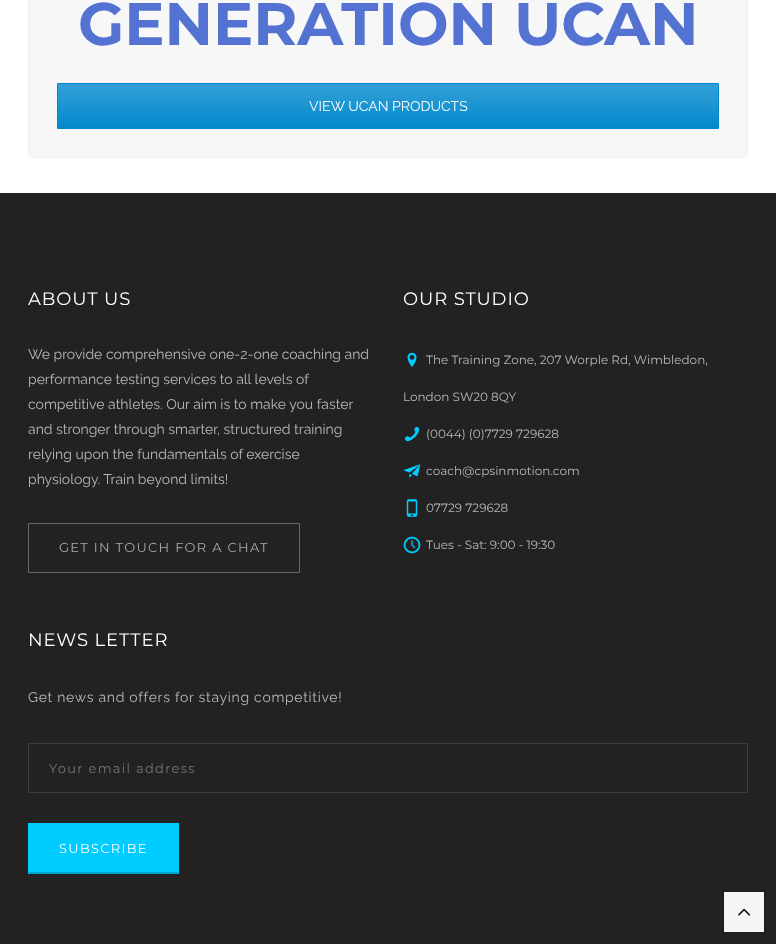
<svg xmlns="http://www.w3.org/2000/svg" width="776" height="944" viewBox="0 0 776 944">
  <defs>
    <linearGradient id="g1" gradientUnits="userSpaceOnUse" x1="388" y1="84" x2="388" y2="128"><stop offset="0" stop-color="#33a0d6"/><stop offset="1" stop-color="#0389cd"/></linearGradient>
  </defs>
  <rect width="100%" height="100%" fill="#fff"/>
  <rect x="28.5" y="-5.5" width="719" height="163" rx="4.5" fill="#f7f7f7" stroke="#f0f0f0"/>
  <path d="M58 84h660v44H58z" fill="url(#g1)"/>
  <path d="M57.5 83.5h661v45H57.5z" fill="none" stroke="#08c"/>
  <path d="M0 193h776v751H0z" fill="#222"/>
  <path d="M28.5 523.5h271v49H28.5z" fill="none" stroke="#666"/>
  <image x="407" y="352" width="10" height="15" href="img/1.png"/>
  <image x="404" y="426" width="16" height="16" href="img/2.png"/>
  <image x="403" y="464" width="18" height="14" href="img/3.png"/>
  <image x="406" y="499" width="12" height="18" href="img/4.png"/>
  <image x="403" y="536" width="18" height="18" href="img/5.png"/>
  <path d="M28.5 743.5h719v49H28.5z" fill="none" stroke="#3c3c3c"/>
  <path d="M28 823h151v51H28z" fill="#0cf"/>
  <path d="M179 874H28L29 872H178Z" fill="#00a3cc"/>
  <path d="M28 874V823H29V872Z" fill="#0cf"/>
  <path d="M723 891h42v42H723z" fill="#f5f5f5" stroke="#1e1e1e" stroke-width="2"/>
  <image x="738" y="908" width="13" height="8" href="img/6.png"/>
  <text x="78" y="45" font-family="Montserrat" font-size="60" font-weight="bold" fill="#5472d2">GENERATION UCAN</text>
  <text x="309" y="111" font-family="Raleway" font-size="14" fill="#fff">VIEW UCAN PRODUCTS</text>
  <text x="28" y="305" font-family="Montserrat" font-size="18" letter-spacing="0.9" fill="#fff">ABOUT US</text>
  <g font-family="Raleway" font-size="14" fill="#b8b8b8">
    <text x="28" y="359">We provide comprehensive one-2-one coaching and</text>
    <text x="28" y="384">performance testing services to all levels of</text>
    <text x="28" y="409">competitive athletes. Our aim is to make you faster</text>
    <text x="28" y="434">and stronger through smarter, structured training</text>
    <text x="28" y="459">relying upon the fundamentals of exercise</text>
    <text x="28" y="484">physiology. Train beyond limits!</text>
  </g>
  <text x="59" y="552" font-family="Montserrat" font-size="13" letter-spacing="1.3" fill="#aaa">GET IN TOUCH FOR A CHAT</text>
  <text x="403" y="305" font-family="Montserrat" font-size="18" letter-spacing="0.9" fill="#fff">OUR STUDIO</text>
  <g font-family="Montserrat" font-size="12" fill="#b8b8b8">
    <text x="426" y="364">The Training Zone, 207 Worple Rd, Wimbledon,</text>
    <text x="403" y="401">London SW20 8QY</text>
    <text x="426" y="438">(0044) (0)7729 729628</text>
    <text x="426" y="475">coach@cpsinmotion.com</text>
    <text x="426" y="512">07729 729628</text>
    <text x="426" y="549">Tues - Sat: 9:00 - 19:30</text>
  </g>
  <text x="28" y="646" font-family="Montserrat" font-size="18" letter-spacing="0.9" fill="#fff">NEWS LETTER</text>
  <text x="28" y="702" font-family="Raleway" font-size="14" letter-spacing="0.7" fill="#b8b8b8">Get news and offers for staying competitive!</text>
  <text x="49" y="773" font-family="Montserrat" font-size="13" letter-spacing="1.3" fill="#757575">Your email address</text>
  <text x="59" y="853" font-family="Montserrat" font-size="13" letter-spacing="1.3" fill="#fff">SUBSCRIBE</text>
</svg>
